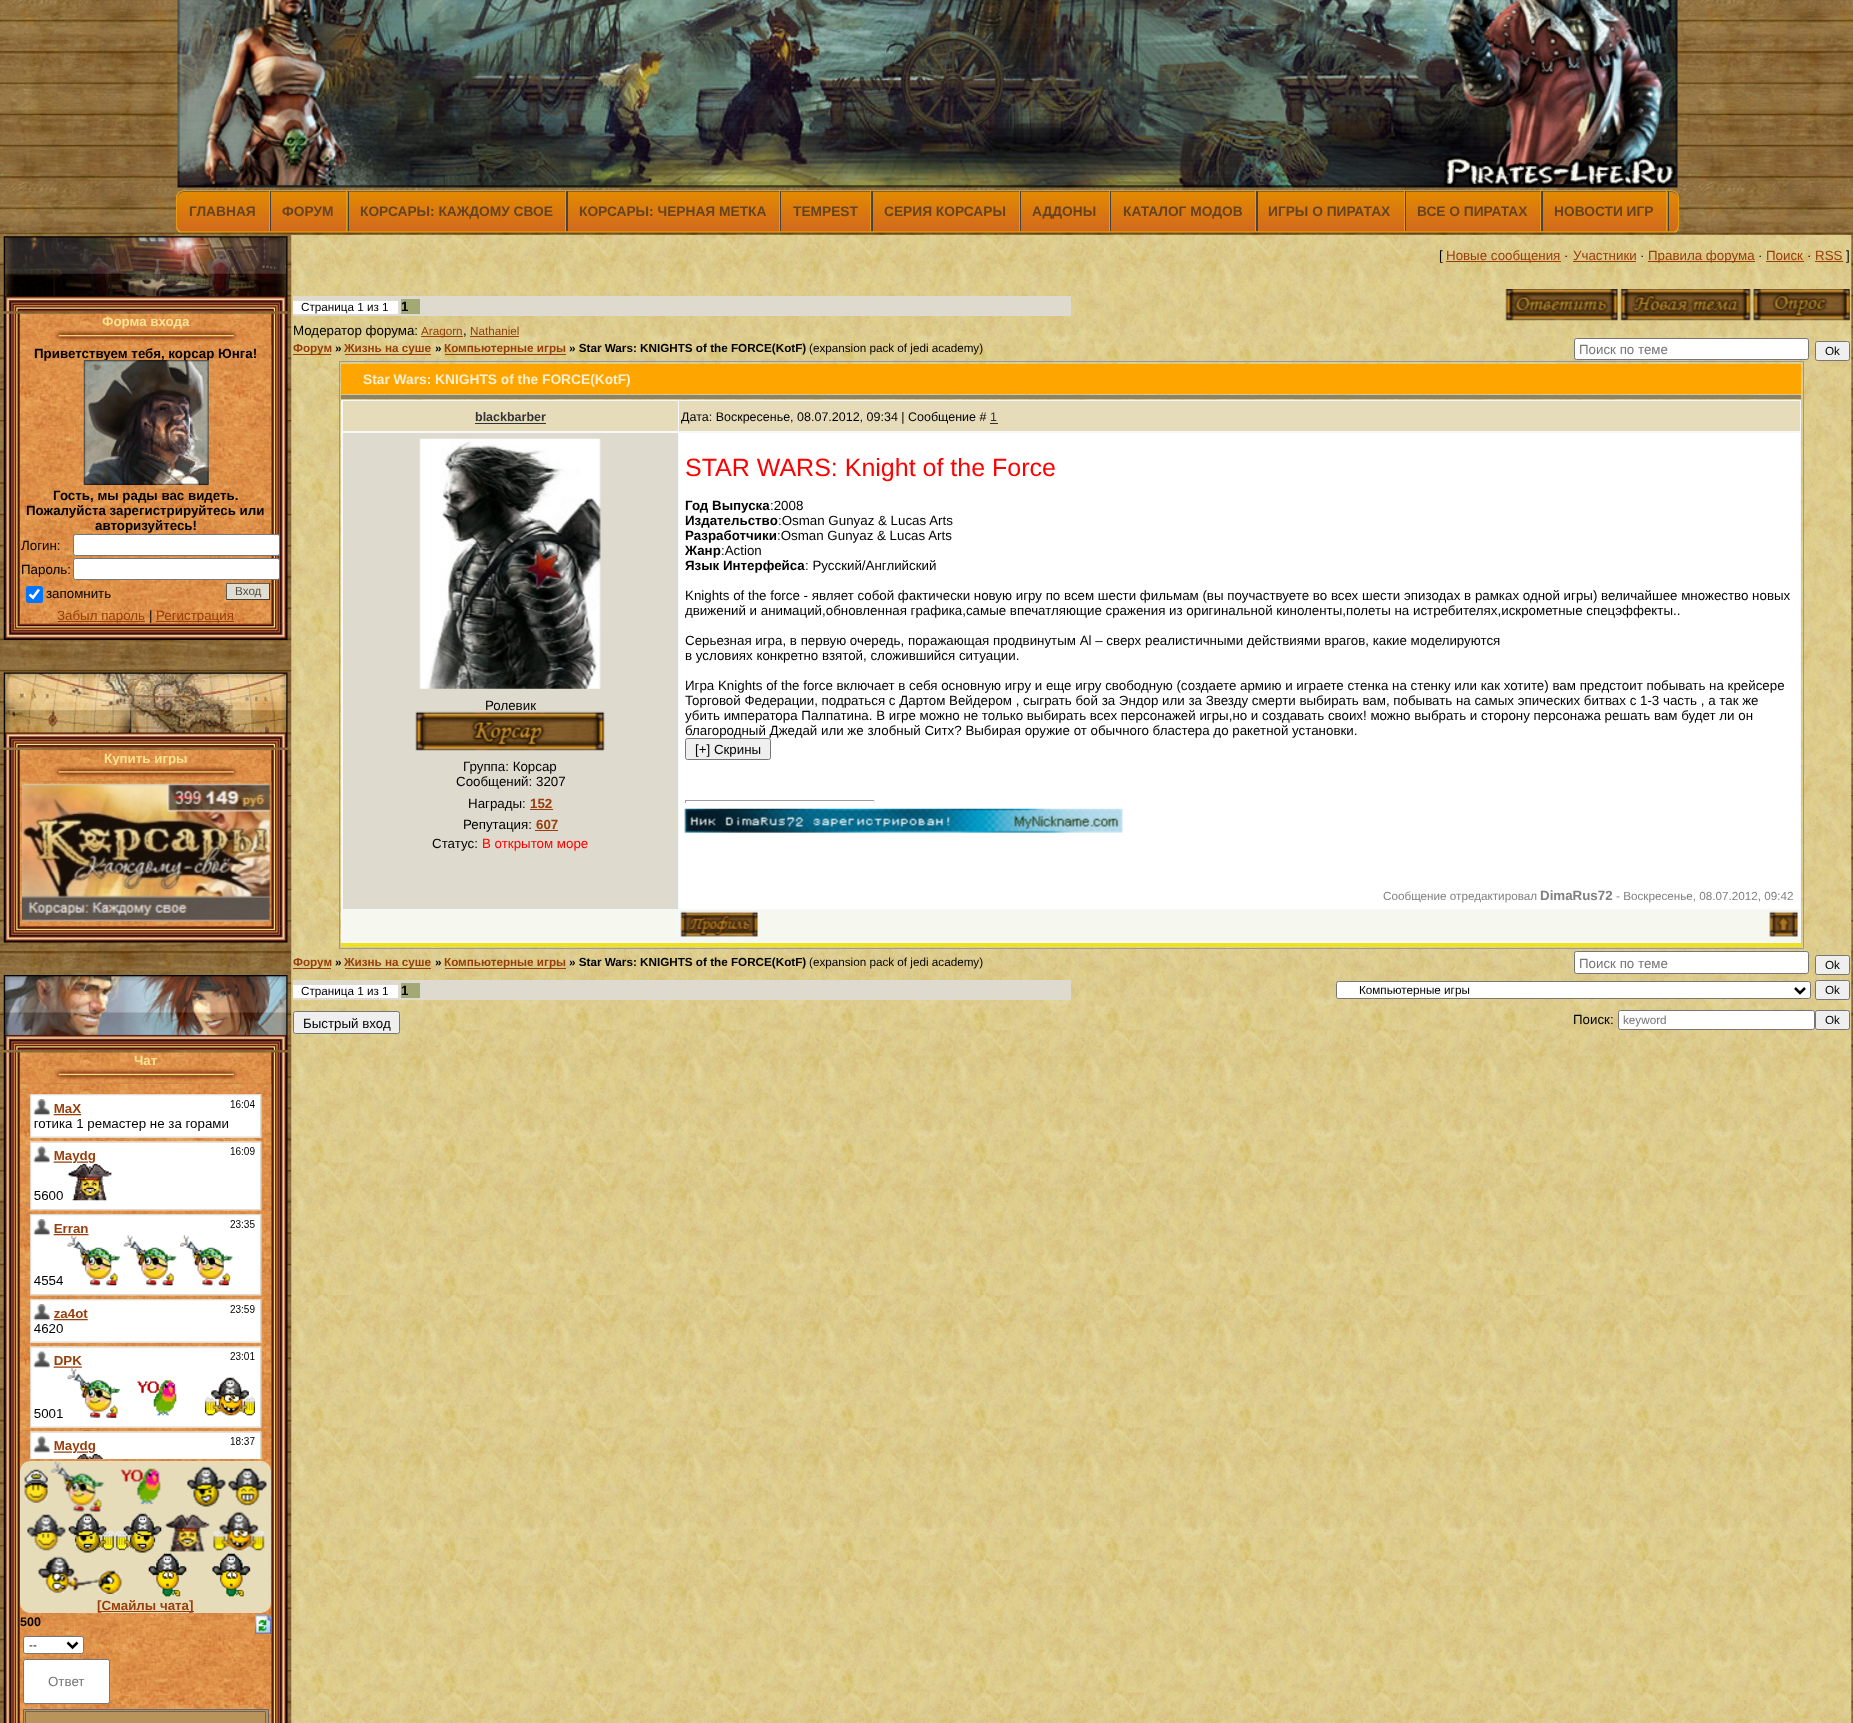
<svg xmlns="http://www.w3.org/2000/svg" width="1853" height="1723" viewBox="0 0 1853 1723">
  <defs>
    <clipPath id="clip1"><rect x="176" y="190" width="1503" height="43" rx="8"/></clipPath>
    <linearGradient id="g1" gradientUnits="userSpaceOnUse" x1="928" y1="191" x2="928" y2="231"><stop offset="0" stop-color="#e28b00"/><stop offset="1" stop-color="#d2691e"/></linearGradient>
    <linearGradient id="g2" gradientUnits="userSpaceOnUse" x1="928" y1="231" x2="928" y2="271"><stop offset="0" stop-color="#e28b00"/><stop offset="1" stop-color="#d2691e"/></linearGradient>
  </defs>
  <rect width="100%" height="100%" fill="#fff"/>
  <image x="0" y="0" width="1853" height="233" href="img/1.png"/>
  <image x="177" y="0" width="1501" height="188" href="img/2.png"/>
  <rect x="176" y="191" width="1503" height="43" rx="8" fill="#efd334" filter="blur(0.5px)"/>
  <g clip-path="url(#clip1)">
    <path d="M176 191h1503v40H176z" fill="url(#g1)"/>
    <path d="M176 231h1503v2H176z" fill="url(#g2)"/>
  </g>
  <path d="M184 192H1671C1675 192 1678 195 1678 199C1678 195 1677 191 1672 191H184C179 191 178 195 178 199C178 195 180 192 184 192Z" fill="#666"/>
  <rect x="176.5" y="190.5" width="1502" height="42" rx="7.5" fill="none" stroke="#e49b0f"/>
  <path d="M179 191H270V231H271V191Z" fill="#444"/>
  <path d="M269 191h1v40H269z" fill="#e49b0f"/>
  <path d="M271 191H348V231H349V191Z" fill="#444"/>
  <path d="M346 191h1v40H346z" fill="#e49b0f"/>
  <path d="M349 191H566V231H568V191Z" fill="#444"/>
  <path d="M565 191h1v40H565z" fill="#e49b0f"/>
  <path d="M568 191H780V231H781V191Z" fill="#444"/>
  <path d="M779 191h1v40H779z" fill="#e49b0f"/>
  <path d="M781 191H871V231H873V191Z" fill="#444"/>
  <path d="M870 191h1v40H870z" fill="#e49b0f"/>
  <path d="M873 191H1020V231H1021V191Z" fill="#444"/>
  <path d="M1019 191h1v40H1019z" fill="#e49b0f"/>
  <path d="M1021 191H1110V231H1111V191Z" fill="#444"/>
  <path d="M1109 191h1v40H1109z" fill="#e49b0f"/>
  <path d="M1111 191H1256V231H1258V191Z" fill="#444"/>
  <path d="M1255 191h1v40H1255z" fill="#e49b0f"/>
  <path d="M1258 191H1405V231H1406V191Z" fill="#444"/>
  <path d="M1404 191h1v40H1404z" fill="#e49b0f"/>
  <path d="M1406 191H1541V231H1543V191Z" fill="#444"/>
  <path d="M1540 191h1v40H1540z" fill="#e49b0f"/>
  <path d="M1543 191H1668V231H1669V191Z" fill="#444"/>
  <path d="M1666 191h1v40H1666z" fill="#e49b0f"/>
  <image x="0" y="232" width="1853" height="1491" href="img/3.png"/>
  <image x="3" y="236" width="285" height="76" href="img/4.png"/>
  <image x="3" y="313" width="17" height="311" href="img/5.png"/>
  <image x="20" y="313" width="252" height="32" href="img/6.png"/>
  <image x="271" y="313" width="17" height="311" href="img/8.png"/>
  <image x="20" y="345" width="252" height="279" href="img/9.png"/>
  <rect x="73.5" y="534.5" width="206" height="21" rx="2" fill="#fff" stroke="#767676"/>
  <rect x="73.5" y="558.5" width="206" height="21" rx="2" fill="#fff" stroke="#767676"/>
  <rect x="26" y="586" width="17" height="17" rx="2.5" fill="#0075ff"/>
  <path d="M29.5 594.5L33 597.5L39 589.5" fill="none" stroke="#fff" stroke-width="2.6"/>
  <path d="M227 584h42v15H227z" fill="#e2ddd1"/>
  <path d="M226 583h44v1H226z" fill="#615e58"/>
  <path d="M269 583h1v17H269z" fill="#413f3b"/>
  <path d="M226 599h44v1H226z" fill="#413f3b"/>
  <path d="M226 583h1v17H226z" fill="#615e58"/>
  <path d="M58 621h87v1H58z" fill="#983e0a"/>
  <path d="M156 621h78v1H156z" fill="#983e0a"/>
  <image x="3" y="623" width="285" height="17" href="img/11.png"/>
  <image x="3" y="672" width="285" height="76" href="img/12.png"/>
  <image x="3" y="750" width="17" height="177" href="img/13.png"/>
  <image x="20" y="750" width="252" height="32" href="img/14.png"/>
  <image x="271" y="750" width="17" height="177" href="img/16.png"/>
  <image x="20" y="781" width="252" height="146" href="img/17.png"/>
  <image x="22" y="783" width="249" height="139" href="img/18.png"/>
  <image x="3" y="926" width="285" height="17" href="img/19.png"/>
  <image x="3" y="975" width="285" height="75" href="img/20.png"/>
  <image x="3" y="1052" width="17" height="671" href="img/21.png"/>
  <image x="20" y="1052" width="252" height="32" href="img/22.png"/>
  <image x="54" y="1067" width="184" height="15" href="img/23.png"/>
  <image x="271" y="1052" width="17" height="671" href="img/24.png"/>
  <image x="20" y="1083" width="252" height="640" href="img/25.png"/>
  <image x="30" y="1094" width="232" height="365" href="img/26.png"/>
  <rect x="20" y="1461" width="251" height="152" rx="10" fill="#e7dcba"/>
  <image x="24" y="1469" width="24" height="34" href="img/27.png"/>
  <image x="50" y="1460" width="55" height="52" href="img/28.png"/>
  <image x="120" y="1468" width="41" height="37" href="img/29.png"/>
  <image x="187" y="1466" width="39" height="41" href="img/30.png"/>
  <image x="228" y="1468" width="39" height="38" href="img/31.png"/>
  <image x="27" y="1514" width="39" height="37" href="img/32.png"/>
  <image x="68" y="1513" width="94" height="40" href="img/33.png"/>
  <image x="164" y="1514" width="46" height="38" href="img/34.png"/>
  <image x="213" y="1511" width="52" height="40" href="img/35.png"/>
  <image x="38" y="1556" width="84" height="38" href="img/36.png"/>
  <image x="148" y="1553" width="39" height="44" href="img/37.png"/>
  <image x="212" y="1553" width="39" height="44" href="img/38.png"/>
  <path d="M98 1611h96v1H98z" fill="#983e0a"/>
  <image x="255" y="1615" width="17" height="19" href="img/39.png"/>
  <rect x="23.5" y="1636.5" width="60" height="17" rx="2" fill="#fff" stroke="#767676"/>
  <path d="M67.5 1642.5L72.5 1647.5L77.5 1642.5" fill="none" stroke="#000" stroke-width="2.5"/>
  <rect x="23.5" y="1659.5" width="86" height="44" rx="2" fill="#fff" stroke="#767676"/>
  <path d="M23.5 1709.5h245v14H23.5z" fill="#b8935c" stroke="#666"/>
  <path d="M25.5 1711.5h240v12H25.5z" fill="none" stroke="#666"/>
  <image x="291" y="235" width="1561" height="1488" href="img/40.png"/>
  <path d="M1446 261h115v1H1446z" fill="#983e0a"/>
  <path d="M1573 261h63v1H1573z" fill="#983e0a"/>
  <path d="M1648 261h107v1H1648z" fill="#983e0a"/>
  <path d="M1766 261h38v1H1766z" fill="#983e0a"/>
  <path d="M1815 261h28v1H1815z" fill="#983e0a"/>
  <path d="M293 296h778v20H293z" fill="#dfdace"/>
  <path d="M293 301h105v13H293z" fill="#fff"/>
  <path d="M401 299h19v15H401z" fill="#a3a974"/>
  <image x="1505" y="289" width="113" height="32" href="img/41.png"/>
  <image x="1620" y="289" width="131" height="32" href="img/42.png"/>
  <image x="1753" y="289" width="97" height="32" href="img/43.png"/>
  <path d="M421 336h42v1H421z" fill="#983e0a"/>
  <path d="M470 336h49v1H470z" fill="#983e0a"/>
  <path d="M293 354h38v1H293z" fill="#983e0a"/>
  <path d="M345 354h86v1H345z" fill="#983e0a"/>
  <path d="M445 354h121v1H445z" fill="#983e0a"/>
  <rect x="1574.5" y="338.5" width="234" height="21" rx="2" fill="#fff" stroke="#767676"/>
  <rect x="1815.5" y="341.5" width="34" height="19" rx="2" fill="#efefef" stroke="#767676"/>
  <path d="M339.5 361.5h1464v587H339.5z" fill="none" stroke="#999"/>
  <path d="M341 364h1460v30H341z" fill="#ffa500"/>
  <path d="M341 395h1460v4H341z" fill="#8c8368"/>
  <path d="M341 400h1460v543H341z" fill="#f5f9fd"/>
  <path d="M341 943h1460v4H341z" fill="#ede121"/>
  <path d="M343 401h335v30H343z" fill="#e7dcba"/>
  <path d="M475 423h71v1H475z" fill="#333"/>
  <path d="M679 401h1121v30H679z" fill="#e7dcba"/>
  <path d="M990 423h8v1H990z" fill="#333"/>
  <path d="M343 433h335v476H343z" fill="#dfdace"/>
  <image x="419" y="438" width="182" height="251" href="img/44.png"/>
  <image x="415" y="711" width="190" height="40" href="img/45.png"/>
  <path d="M530 809h23v1H530z" fill="#983e0a"/>
  <path d="M535 830h23v1H535z" fill="#983e0a"/>
  <path d="M679 433h1121v476H679z" fill="#fff"/>
  <rect x="685.5" y="738.5" width="85" height="21" rx="2" fill="#efefef" stroke="#767676"/>
  <path d="M685 800h190v1H685z" fill="#9f9f9f"/>
  <path d="M874 800h1v3H874z" fill="#eee"/>
  <path d="M685 800h1v3H685z" fill="#9f9f9f"/>
  <image x="684" y="808" width="439" height="25" href="img/46.png"/>
  <path d="M343 910h335v31H343z" fill="#f6f7ef"/>
  <path d="M679 910h1121v31H679z" fill="#f6f7ef"/>
  <image x="680" y="911" width="78" height="26" href="img/47.png"/>
  <image x="1769" y="911" width="29" height="26" href="img/48.png"/>
  <path d="M293 968h38v1H293z" fill="#983e0a"/>
  <path d="M345 968h86v1H345z" fill="#983e0a"/>
  <path d="M445 968h121v1H445z" fill="#983e0a"/>
  <rect x="1574.5" y="951.5" width="234" height="22" rx="2" fill="#fff" stroke="#767676"/>
  <rect x="1815.5" y="955.5" width="34" height="19" rx="2" fill="#efefef" stroke="#767676"/>
  <path d="M293 980h778v20H293z" fill="#dfdace"/>
  <path d="M293 985h105v13H293z" fill="#fff"/>
  <path d="M401 983h19v15H401z" fill="#a3a974"/>
  <rect x="1336.5" y="981.5" width="474" height="17" rx="2" fill="#fff" stroke="#767676"/>
  <path d="M1795 988L1800 993L1805 988" fill="none" stroke="#000" stroke-width="2.5"/>
  <rect x="1815.5" y="980.5" width="34" height="19" rx="2" fill="#efefef" stroke="#767676"/>
  <rect x="293.5" y="1011.5" width="106" height="22" rx="2" fill="#efefef" stroke="#767676"/>
  <rect x="1618.5" y="1010.5" width="196" height="19" rx="2" fill="#fff" stroke="#767676"/>
  <rect x="1815.5" y="1010.5" width="34" height="19" rx="2" fill="#efefef" stroke="#767676"/>
  <g font-family="Liberation Sans" font-size="13.75" font-weight="bold" fill="#654321">
    <text x="189" y="216">ГЛАВНАЯ</text>
    <text x="282" y="216">ФОРУМ</text>
    <text x="360" y="216">КОРСАРЫ: КАЖДОМУ СВОЕ</text>
    <text x="579" y="216">КОРСАРЫ: ЧЕРНАЯ МЕТКА</text>
    <text x="793" y="216">TEMPEST</text>
    <text x="884" y="216">СЕРИЯ КОРСАРЫ</text>
    <text x="1032" y="216">АДДОНЫ</text>
    <text x="1123" y="216">КАТАЛОГ МОДОВ</text>
    <text x="1268" y="216">ИГРЫ О ПИРАТАХ</text>
    <text x="1417" y="216">ВСЕ О ПИРАТАХ</text>
    <text x="1554" y="216">НОВОСТИ ИГР</text>
  </g>
  <text x="102" y="326" font-family="Liberation Sans" font-size="13.33" font-weight="bold" fill="#fae291">Форма входа</text>
  <image x="54" y="328" width="184" height="15" href="img/7.png"/>
  <text x="34" y="358" font-family="Liberation Sans" font-size="13.33" font-weight="bold" fill="#000">Приветствуем тебя, корсар Юнга!</text>
  <image x="83" y="360" width="126" height="125" href="img/10.png"/>
  <g font-family="Liberation Sans" font-size="13.33" font-weight="bold" fill="#000">
    <text x="53" y="500">Гость, мы рады вас видеть.</text>
    <text x="26" y="515">Пожалуйста зарегистрируйтесь или</text>
    <text x="95" y="530">авторизуйтесь!</text>
  </g>
  <g font-family="Liberation Sans" font-size="13.33" fill="#000">
    <text x="21" y="550">Логин:</text>
    <text x="21" y="574">Пароль:</text>
    <text x="46" y="598">запомнить</text>
  </g>
  <text x="235" y="595" font-family="Liberation Sans" font-size="11.7" fill="#4f4d48">Вход</text>
  <text x="57" y="620" font-family="Liberation Sans" font-size="13.33" fill="#983e0a">Забыл пароль</text>
  <text x="149" y="620" font-family="Liberation Sans" font-size="13.33" fill="#000">|</text>
  <text x="156" y="620" font-family="Liberation Sans" font-size="13.33" fill="#983e0a">Регистрация</text>
  <text x="104" y="763" font-family="Liberation Sans" font-size="13.33" font-weight="bold" fill="#fae291">Купить игры</text>
  <image x="53" y="765" width="185" height="14" href="img/15.png"/>
  <text x="134" y="1065" font-family="Liberation Sans" font-size="13.33" font-weight="bold" fill="#fae291">Чат</text>
  <text x="97" y="1610" font-family="Liberation Sans" font-size="13.33" font-weight="bold" fill="#983e0a">[Смайлы чата]</text>
  <text x="20" y="1626" font-family="Liberation Sans" font-size="12.5" font-weight="bold" fill="#000">500</text>
  <text x="29" y="1649" font-family="Liberation Sans" font-size="11.7" fill="#000">--</text>
  <text x="48" y="1686" font-family="Liberation Sans" font-size="13.33" fill="#757575">Ответ</text>
  <text x="1439" y="260" font-family="Liberation Sans" font-size="13.33" fill="#000">[</text>
  <text x="1446" y="260" font-family="Liberation Sans" font-size="13.33" fill="#983e0a">Новые сообщения</text>
  <text x="1564" y="260" font-family="Liberation Sans" font-size="13.33" fill="#000">·</text>
  <text x="1573" y="260" font-family="Liberation Sans" font-size="13.33" fill="#983e0a">Участники</text>
  <text x="1640" y="260" font-family="Liberation Sans" font-size="13.33" fill="#000">·</text>
  <text x="1648" y="260" font-family="Liberation Sans" font-size="13.33" fill="#983e0a">Правила форума</text>
  <text x="1758" y="260" font-family="Liberation Sans" font-size="13.33" fill="#000">·</text>
  <text x="1766" y="260" font-family="Liberation Sans" font-size="13.33" fill="#983e0a">Поиск</text>
  <text x="1807" y="260" font-family="Liberation Sans" font-size="13.33" fill="#000">·</text>
  <text x="1815" y="260" font-family="Liberation Sans" font-size="13.33" fill="#983e0a">RSS</text>
  <text x="1846" y="260" font-family="Liberation Sans" font-size="13.33" fill="#000">]</text>
  <text x="301" y="311" font-family="Liberation Sans" font-size="11.7" fill="#000">Страница 1 из 1</text>
  <text x="401" y="311" font-family="Liberation Sans" font-size="13.33" font-weight="bold" fill="#000">1</text>
  <text x="293" y="335" font-family="Liberation Sans" font-size="13.33" fill="#000">Модератор форума:</text>
  <text x="421" y="335" font-family="Liberation Sans" font-size="11.7" fill="#983e0a">Aragorn</text>
  <text x="463" y="335" font-family="Liberation Sans" font-size="13.33" fill="#000">,</text>
  <text x="470" y="335" font-family="Liberation Sans" font-size="11.7" fill="#983e0a">Nathaniel</text>
  <text x="293" y="352" font-family="Liberation Sans" font-size="11.7" font-weight="bold" fill="#983e0a">Форум</text>
  <text x="335" y="352" font-family="Liberation Sans" font-size="11.7" font-weight="bold" fill="#000">»</text>
  <text x="344" y="352" font-family="Liberation Sans" font-size="11.7" font-weight="bold" fill="#983e0a">Жизнь на суше</text>
  <text x="435" y="352" font-family="Liberation Sans" font-size="11.7" font-weight="bold" fill="#000">»</text>
  <text x="444" y="352" font-family="Liberation Sans" font-size="11.7" font-weight="bold" fill="#983e0a">Компьютерные игры</text>
  <text x="569" y="352" font-family="Liberation Sans" font-size="11.7" font-weight="bold" fill="#000">» Star Wars: KNIGHTS of the FORCE(KotF)</text>
  <text x="809" y="352" font-family="Liberation Sans" font-size="11.7" fill="#000">(expansion pack of jedi academy)</text>
  <text x="1579" y="354" font-family="Liberation Sans" font-size="13.33" fill="#757575">Поиск по теме</text>
  <text x="1825" y="355" font-family="Liberation Sans" font-size="11.7" fill="#000">Ok</text>
  <text x="363" y="384" font-family="Liberation Sans" font-size="13.75" font-weight="bold" fill="#faf0d1">Star Wars: KNIGHTS of the FORCE(KotF)</text>
  <text x="475" y="421" font-family="Liberation Sans" font-size="12.5" font-weight="bold" fill="#333">blackbarber</text>
  <text x="681" y="421" font-family="Liberation Sans" font-size="12.5" fill="#000">Дата: Воскресенье, 08.07.2012, 09:34 | Сообщение #</text>
  <text x="990" y="421" font-family="Liberation Sans" font-size="12.5" fill="#333">1</text>
  <g font-family="Liberation Sans" font-size="13.33" fill="#000">
    <text x="485" y="710">Ролевик</text>
    <text x="463" y="771">Группа: Корсар</text>
    <text x="456" y="786">Сообщений: 3207</text>
    <text x="468" y="808">Награды:</text>
  </g>
  <text x="530" y="808" font-family="Liberation Sans" font-size="13.33" font-weight="bold" fill="#983e0a">152</text>
  <text x="463" y="829" font-family="Liberation Sans" font-size="13.33" fill="#000">Репутация:</text>
  <text x="536" y="829" font-family="Liberation Sans" font-size="13.33" font-weight="bold" fill="#983e0a">607</text>
  <text x="432" y="848" font-family="Liberation Sans" font-size="13.33" fill="#000">Статус:</text>
  <text x="482" y="848" font-family="Liberation Sans" font-size="13.33" fill="#f00">В открытом море</text>
  <text x="685" y="476" font-family="Liberation Sans" font-size="25" fill="#f00">STAR WARS: Knight of the Force</text>
  <text x="685" y="510" font-family="Liberation Sans" font-size="13.33" font-weight="bold" fill="#000">Год Выпуска</text>
  <text x="770" y="510" font-family="Liberation Sans" font-size="13.33" fill="#000">:2008</text>
  <text x="685" y="525" font-family="Liberation Sans" font-size="13.33" font-weight="bold" fill="#000">Издательство</text>
  <text x="778" y="525" font-family="Liberation Sans" font-size="13.33" fill="#000">:Osman Gunyaz &amp; Lucas Arts</text>
  <text x="685" y="540" font-family="Liberation Sans" font-size="13.33" font-weight="bold" fill="#000">Разработчики</text>
  <text x="777" y="540" font-family="Liberation Sans" font-size="13.33" fill="#000">:Osman Gunyaz &amp; Lucas Arts</text>
  <text x="685" y="555" font-family="Liberation Sans" font-size="13.33" font-weight="bold" fill="#000">Жанр</text>
  <text x="721" y="555" font-family="Liberation Sans" font-size="13.33" fill="#000">:Action</text>
  <text x="685" y="570" font-family="Liberation Sans" font-size="13.33" font-weight="bold" fill="#000">Язык Интерфейса</text>
  <g font-family="Liberation Sans" font-size="13.33" fill="#000">
    <text x="805" y="570">: Русский/Английский</text>
    <text x="685" y="600">Knights of the force - являет собой фактически новую игру по всем шести фильмам (вы поучаствуете во всех шести эпизодах в рамках одной игры) величайшее множество новых</text>
    <text x="685" y="615">движений и анимаций,обновленная графика,самые впечатляющие сражения из оригинальной киноленты,полеты на истребителях,искрометные спецэффекты..</text>
    <text x="685" y="645">Серьезная игра, в первую очередь, поражающая продвинутым Al – сверх реалистичными действиями врагов, какие моделируются</text>
    <text x="685" y="660">в условиях конкретно взятой, сложившийся ситуации.</text>
    <text x="685" y="690">Игра Knights of the force включает в себя основную игру и еще игру свободную (создаете армию и играете стенка на стенку или как хотите) вам предстоит побывать на крейсере</text>
    <text x="685" y="705">Торговой Федерации, подраться с Дартом Вейдером , сыграть бой за Эндор или за Звезду смерти выбирать вам, побывать на самых эпических битвах с 1-3 часть , а так же</text>
    <text x="685" y="720">убить императора Палпатина. В игре можно не только выбирать всех персонажей игры,но и создавать своих! можно выбрать и сторону персонажа решать вам будет ли он</text>
    <text x="685" y="735">благородный Джедай или же злобный Ситх? Выбирая оружие от обычного бластера до ракетной установки.</text>
    <text x="695" y="754">[+] Скрины</text>
  </g>
  <text x="1383" y="900" font-family="Liberation Sans" font-size="11.7" fill="#808080">Сообщение отредактировал</text>
  <text x="1540" y="900" font-family="Liberation Sans" font-size="13.33" font-weight="bold" fill="#808080">DimaRus72</text>
  <text x="1616" y="900" font-family="Liberation Sans" font-size="11.7" fill="#808080">- Воскресенье, 08.07.2012, 09:42</text>
  <text x="293" y="966" font-family="Liberation Sans" font-size="11.7" font-weight="bold" fill="#983e0a">Форум</text>
  <text x="335" y="966" font-family="Liberation Sans" font-size="11.7" font-weight="bold" fill="#000">»</text>
  <text x="344" y="966" font-family="Liberation Sans" font-size="11.7" font-weight="bold" fill="#983e0a">Жизнь на суше</text>
  <text x="435" y="966" font-family="Liberation Sans" font-size="11.7" font-weight="bold" fill="#000">»</text>
  <text x="444" y="966" font-family="Liberation Sans" font-size="11.7" font-weight="bold" fill="#983e0a">Компьютерные игры</text>
  <text x="569" y="966" font-family="Liberation Sans" font-size="11.7" font-weight="bold" fill="#000">» Star Wars: KNIGHTS of the FORCE(KotF)</text>
  <text x="809" y="966" font-family="Liberation Sans" font-size="11.7" fill="#000">(expansion pack of jedi academy)</text>
  <text x="1579" y="968" font-family="Liberation Sans" font-size="13.33" fill="#757575">Поиск по теме</text>
  <g font-family="Liberation Sans" font-size="11.7" fill="#000">
    <text x="1825" y="969">Ok</text>
    <text x="301" y="995">Страница 1 из 1</text>
  </g>
  <text x="401" y="995" font-family="Liberation Sans" font-size="13.33" font-weight="bold" fill="#000">1</text>
  <g font-family="Liberation Sans" font-size="11.7" fill="#000">
    <text x="1359" y="994">Компьютерные игры</text>
    <text x="1825" y="994">Ok</text>
  </g>
  <g font-family="Liberation Sans" font-size="13.33" fill="#000">
    <text x="303" y="1028">Быстрый вход</text>
    <text x="1573" y="1024">Поиск:</text>
  </g>
  <text x="1623" y="1024" font-family="Liberation Sans" font-size="11.7" fill="#757575">keyword</text>
  <text x="1825" y="1024" font-family="Liberation Sans" font-size="11.7" fill="#000">Ok</text>
</svg>
